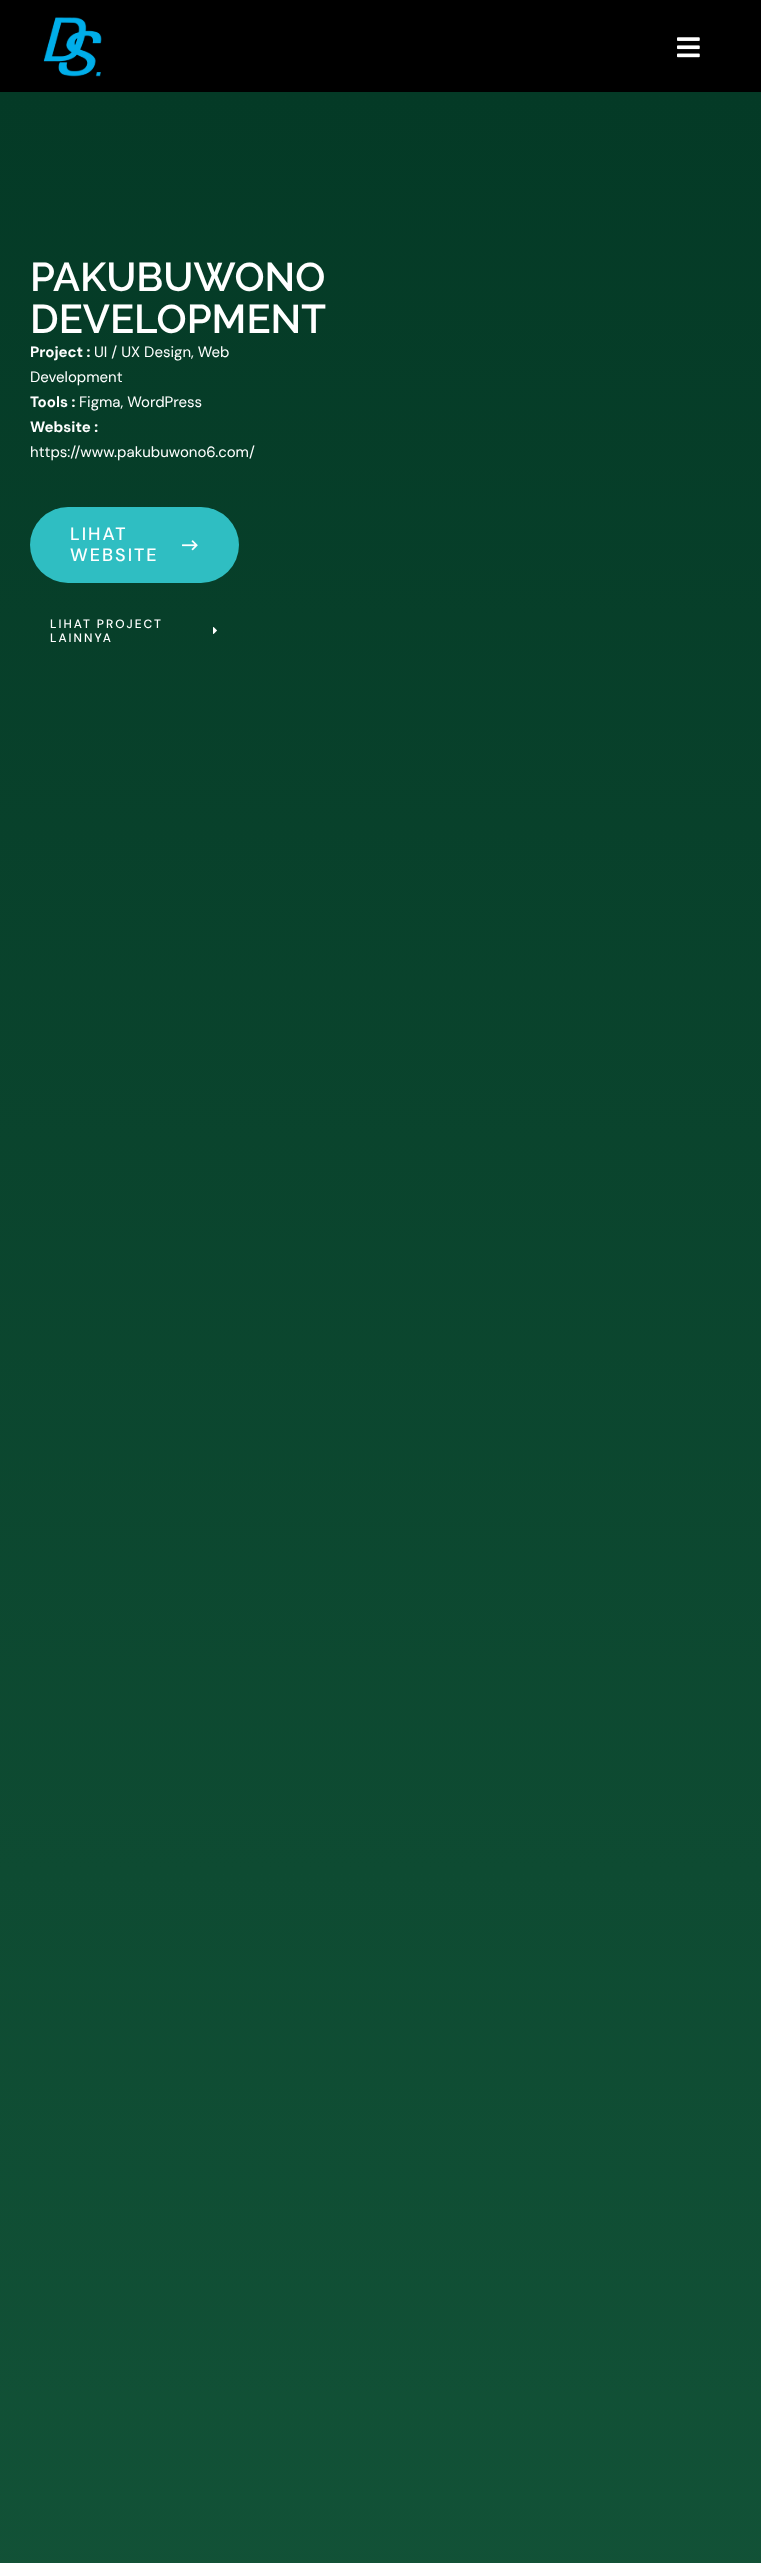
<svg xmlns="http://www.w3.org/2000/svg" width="761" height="2563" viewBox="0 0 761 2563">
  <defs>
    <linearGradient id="g1" gradientUnits="userSpaceOnUse" x1="380" y1="92" x2="381" y2="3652"><stop offset="0" stop-color="#043a26"/><stop offset="1" stop-color="#185c3e"/></linearGradient>
  </defs>
  <rect width="100%" height="100%" fill="#000"/>
  <image x="43" y="17" width="59" height="60" href="img/1.png"/>
  <image x="677" y="37" width="23" height="21" href="img/2.png"/>
  <path d="M0 92h761v2471H0z" fill="url(#g1)"/>
  <rect x="30" y="507" width="209" height="76" rx="38" fill="#2fbec2"/>
  <image x="182" y="540" width="16" height="11" href="img/3.png"/>
  <image x="213" y="627" width="4" height="7" href="img/4.png"/>
  <g font-family="Raleway" font-size="40" font-weight="600" fill="#fff">
    <text x="30" y="291">PAKUBUWONO</text>
    <text x="30" y="333">DEVELOPMENT</text>
  </g>
  <text x="30" y="357" font-family="DM Sans" font-size="15" font-weight="bold" fill="#fff">Project :</text>
  <g font-family="DM Sans" font-size="15" fill="#fff">
    <text x="94" y="357">UI / UX Design, Web</text>
    <text x="30" y="382">Development</text>
  </g>
  <text x="30" y="407" font-family="DM Sans" font-size="15" font-weight="bold" fill="#fff">Tools :</text>
  <text x="79" y="407" font-family="DM Sans" font-size="15" fill="#fff">Figma, WordPress</text>
  <text x="30" y="432" font-family="DM Sans" font-size="15" font-weight="bold" fill="#fff">Website :</text>
  <text x="30" y="457" font-family="DM Sans" font-size="15" fill="#fff">https://www.pakubuwono6.com/</text>
  <g font-family="DM Sans" font-size="18" font-weight="500" letter-spacing="2" fill="#fff">
    <text x="70" y="540">LIHAT</text>
    <text x="70" y="561">WEBSITE</text>
  </g>
  <g font-family="DM Sans" font-size="12" font-weight="500" letter-spacing="2" fill="#fff">
    <text x="50" y="628">LIHAT PROJECT</text>
    <text x="50" y="642">LAINNYA</text>
  </g>
</svg>
